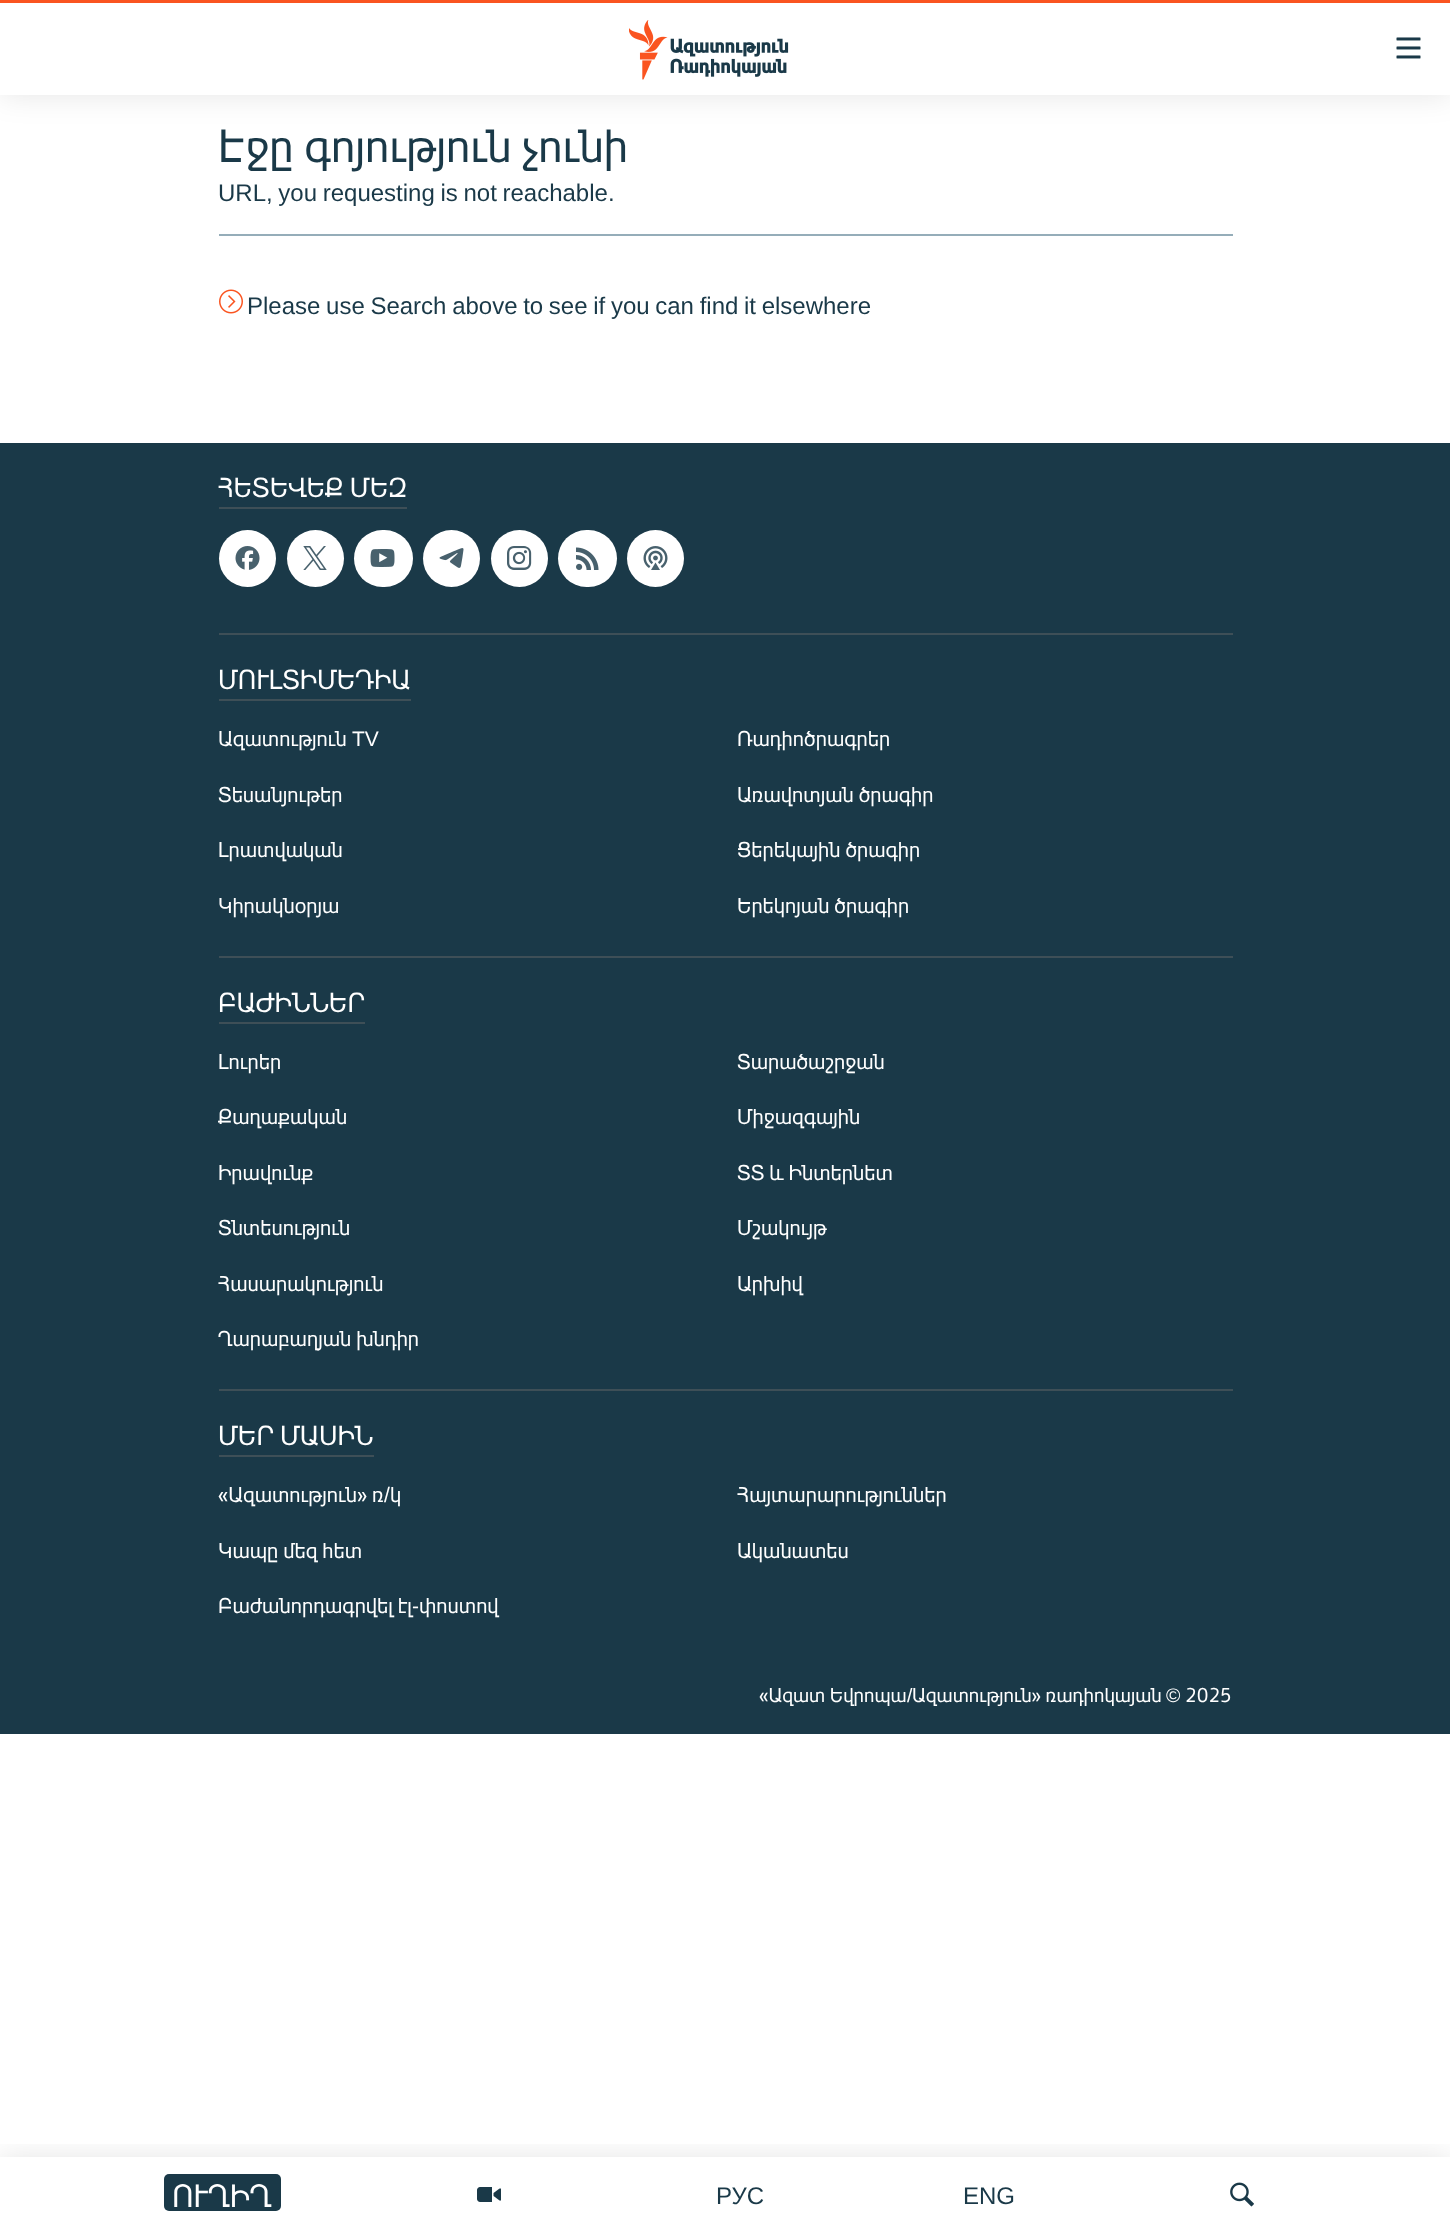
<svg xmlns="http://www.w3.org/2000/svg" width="1450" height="2232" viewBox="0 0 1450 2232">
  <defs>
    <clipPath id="clip1"><path d="M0 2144h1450v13H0z"/></clipPath>
  </defs>
  <rect width="100%" height="100%" fill="#fff"/>
  <path d="M219 234h1014v2H219z" fill="#95adb9"/>
  <image x="219" y="289" width="24" height="25" href="img/1.png"/>
  <path d="M0 443h1450v1291H0z" fill="#1a3948"/>
  <path d="M219 507h188v2H219z" fill="#3e4f57"/>
  <circle cx="247.5" cy="558.5" r="28.5" fill="#fff"/>
  <image x="235" y="546" width="25" height="24" href="img/2.png"/>
  <circle cx="315.5" cy="558.5" r="28.5" fill="#fff"/>
  <image x="303" y="546" width="24" height="24" href="img/3.png"/>
  <rect x="354" y="530" width="59" height="57" rx="28.5" fill="#fff"/>
  <image x="370" y="549" width="25" height="18" href="img/4.png"/>
  <circle cx="451.5" cy="558.5" r="28.5" fill="#fff"/>
  <image x="439" y="548" width="25" height="20" href="img/5.png"/>
  <circle cx="519.5" cy="558.5" r="28.5" fill="#fff"/>
  <image x="507" y="546" width="25" height="24" href="img/6.png"/>
  <rect x="558" y="530" width="59" height="57" rx="28.5" fill="#fff"/>
  <image x="576" y="547" width="23" height="23" href="img/7.png"/>
  <circle cx="655.5" cy="558.5" r="28.5" fill="#fff"/>
  <image x="643" y="546" width="25" height="24" href="img/8.png"/>
  <path d="M219 633h1014v2H219z" fill="#3e4f57"/>
  <path d="M219 699h192v2H219z" fill="#3e4f57"/>
  <path d="M219 956h1014v2H219z" fill="#3e4f57"/>
  <path d="M219 1022h146v2H219z" fill="#3e4f57"/>
  <path d="M219 1389h1014v2H219z" fill="#3e4f57"/>
  <path d="M219 1455h155v2H219z" fill="#3e4f57"/>
  <path d="M0 0h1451v95H0z" fill="#0000001a" filter="blur(15px)"/>
  <path d="M0 3h1450v92H0z" fill="#fff"/>
  <path d="M0 0h1450v3H0z" fill="#fa5420"/>
  <image x="629" y="20" width="160" height="60" href="img/9.png"/>
  <image x="1396" y="37" width="25" height="22" href="img/10.png"/>
  <g clip-path="url(#clip1)">
    <path d="M0 2157h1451v75H0z" fill="#0000001a" filter="blur(15px)"/>
  </g>
  <rect x="164" y="2174" width="117" height="37" rx="5" fill="#1a3948"/>
  <image x="477" y="2187" width="24" height="15" href="img/11.png"/>
  <image x="1230" y="2182" width="24" height="25" href="img/12.png"/>
  <text x="218" y="162" font-family="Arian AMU" font-size="45.5" fill="#1a3948">Էջը գոյություն չունի</text>
  <g font-family="Liberation Sans" font-size="24" fill="#1a3948">
    <text x="218" y="201" word-spacing="-1">URL, you requesting is not reachable.</text>
    <text x="247" y="314" word-spacing="-1">Please use Search above to see if you can find it elsewhere</text>
  </g>
  <g font-family="Arian AMU" font-size="27" fill="#fff">
    <text x="218" y="497">ՀԵՏԵՎԵՔ ՄԵԶ</text>
    <text x="218" y="689">ՄՈՒԼՏԻՄԵԴԻԱ</text>
  </g>
  <text x="218" y="746" font-family="Arian AMU" font-size="21" fill="#fff">Ազատություն</text>
  <text x="352" y="746" font-family="Liberation Sans" font-size="21" fill="#fff">TV</text>
  <g font-family="Arian AMU" font-size="21" fill="#fff">
    <text x="737" y="746">Ռադիոծրագրեր</text>
    <text x="218" y="802">Տեսանյութեր</text>
    <text x="737" y="802">Առավոտյան ծրագիր</text>
    <text x="218" y="857">Լրատվական</text>
    <text x="737" y="857">Ցերեկային ծրագիր</text>
    <text x="218" y="913">Կիրակնօրյա</text>
    <text x="737" y="913">Երեկոյան ծրագիր</text>
  </g>
  <text x="218" y="1012" font-family="Arian AMU" font-size="27" fill="#fff">ԲԱԺԻՆՆԵՐ</text>
  <g font-family="Arian AMU" font-size="21" fill="#fff">
    <text x="218" y="1069">Լուրեր</text>
    <text x="737" y="1069">Տարածաշրջան</text>
    <text x="218" y="1124">Քաղաքական</text>
    <text x="737" y="1124">Միջազգային</text>
    <text x="218" y="1180">Իրավունք</text>
    <text x="737" y="1180">ՏՏ և Ինտերնետ</text>
    <text x="218" y="1235">Տնտեսություն</text>
    <text x="737" y="1235">Մշակույթ</text>
    <text x="218" y="1291">Հասարակություն</text>
    <text x="737" y="1291">Արխիվ</text>
    <text x="218" y="1346">Ղարաբաղյան խնդիր</text>
  </g>
  <text x="218" y="1445" font-family="Arian AMU" font-size="27" fill="#fff">ՄԵՐ ՄԱՍԻՆ</text>
  <text x="218" y="1502" font-family="Arian AMU" font-size="21" fill="#fff">«Ազատություն» ռ</text>
  <text x="384" y="1502" font-family="Liberation Sans" font-size="21" fill="#fff">/</text>
  <g font-family="Arian AMU" font-size="21" fill="#fff">
    <text x="390" y="1502">կ</text>
    <text x="737" y="1502">Հայտարարություններ</text>
    <text x="218" y="1558">Կապը մեզ հետ</text>
    <text x="737" y="1558">Ականատես</text>
    <text x="218" y="1613">Բաժանորդագրվել էլ</text>
  </g>
  <text x="412" y="1613" font-family="Liberation Sans" font-size="21" fill="#fff">-</text>
  <text x="419" y="1613" font-family="Arian AMU" font-size="21" fill="#fff">փոստով</text>
  <text x="759" y="1702" font-family="Arian AMU" font-size="19.5" fill="#fff">«Ազատ Եվրոպա</text>
  <text x="907" y="1702" font-family="Liberation Sans" font-size="19.5" fill="#fff">/</text>
  <text x="912" y="1702" font-family="Arian AMU" font-size="19.5" fill="#fff">Ազատություն» ռադիոկայան</text>
  <text x="1166" y="1702" font-family="Liberation Sans" font-size="19.5" fill="#fff">©</text>
  <text x="1185" y="1702" font-family="Arian AMU" font-size="19.5" fill="#fff">2025</text>
  <text x="172" y="2207" font-family="Arian AMU" font-size="31.5" fill="#fff">ՈՒՂԻՂ</text>
  <g font-family="Liberation Sans" font-size="24" fill="#1a3948">
    <text x="716" y="2204">РУС</text>
    <text x="963" y="2204">ENG</text>
  </g>
</svg>
